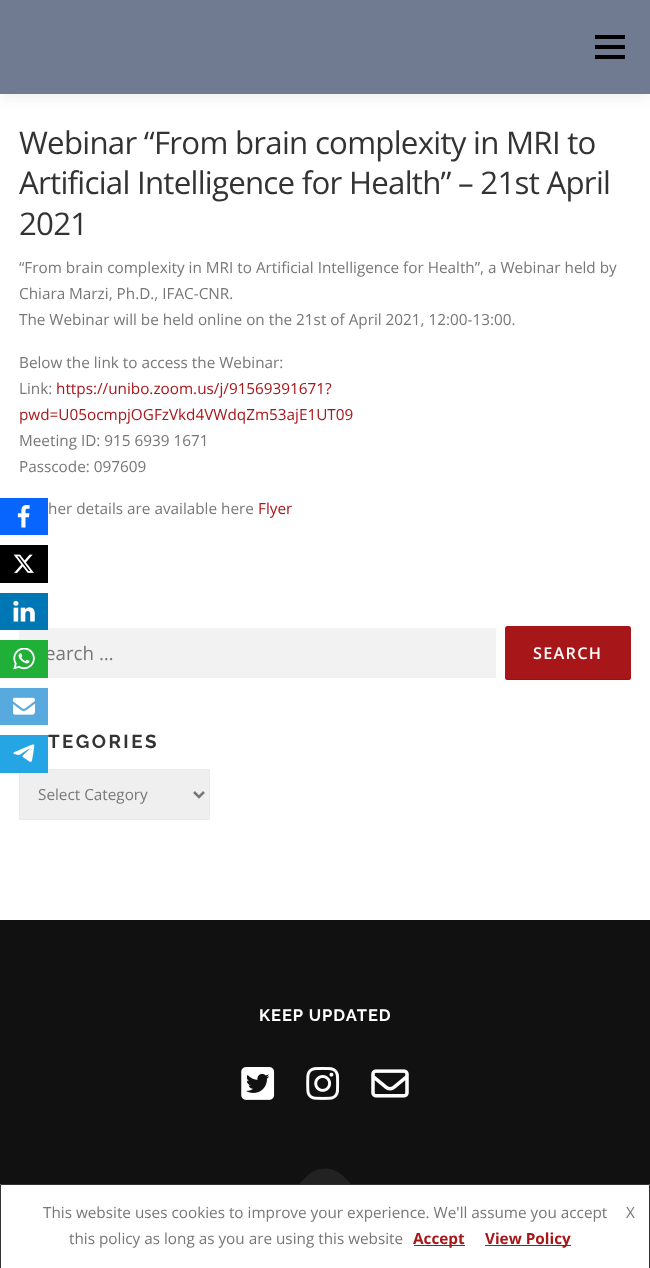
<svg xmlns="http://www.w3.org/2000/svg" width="650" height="1268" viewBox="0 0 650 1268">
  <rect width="100%" height="100%" fill="#fff"/>
  <path d="M0 6h650v94H0z" fill="#3232320f" filter="blur(6px)"/>
  <path d="M0 0h650v94H0z" fill="#707a90"/>
  <path d="M595 45h30v4H595z" fill="#000"/>
  <path d="M595 35h30v4H595z" fill="#000"/>
  <path d="M595 55h30v4H595z" fill="#000"/>
  <path d="M19 628h477v50H19z" fill="#f2f2f2"/>
  <rect x="505" y="626" width="126" height="54" rx="2.5" fill="#a7171a"/>
  <path d="M505 676V678C505 679 506 680 508 680H628C630 680 631 679 631 678V676C631 678 630 679 629 679H508C506 679 505 678 505 676Z" fill="#0000001a"/>
  <path d="M19.5 769.5h190v50H19.5z" fill="#efefef" stroke="#e9e9e9"/>
  <path d="M194 792L199 797L204 792" fill="none" stroke="#777" stroke-width="2.5"/>
  <path d="M0 920h650v264H0z" fill="#111"/>
  <image x="241" y="1067" width="34" height="33" href="img/1.png"/>
  <image x="306" y="1067" width="34" height="33" href="img/2.png"/>
  <image x="371" y="1069" width="38" height="29" href="img/3.png"/>
  <path d="M281 1202L307 1176C317 1166 333 1166 343 1176L369 1202L325 1246Z" fill="#222"/>
  <path d="M0 498h48v37H0z" fill="#0866ff"/>
  <image x="17" y="505" width="13" height="23" href="img/4.png"/>
  <path d="M0 545h48v38H0z" fill="#000"/>
  <image x="13" y="554" width="21" height="19" href="img/5.png"/>
  <path d="M0 593h48v37H0z" fill="#0077b5"/>
  <image x="13" y="601" width="22" height="21" href="img/6.png"/>
  <path d="M0 688h48v37H0z" fill="#58a9de"/>
  <image x="13" y="697" width="22" height="18" href="img/8.png"/>
  <path d="M0 735h48v38H0z" fill="#26a5e4"/>
  <image x="13" y="744" width="22" height="18" href="img/9.png"/>
  <path d="M281 1185h88v61H281z" fill="#fff"/>
  <path d="M0.5 1184.5h649v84H0.5z" fill="none" stroke="#333"/>
  <path d="M414 1245h51v1H414z" fill="#a7171a"/>
  <path d="M485 1245h86v1H485z" fill="#a7171a"/>
  <g font-family="Open Sans" font-size="31.25" letter-spacing="-0.75" fill="#333">
    <text x="19" y="154">Webinar “From brain complexity in MRI to</text>
    <text x="19" y="194">Artificial Intelligence for Health” – 21st April</text>
    <text x="19" y="235">2021</text>
  </g>
  <g font-family="Open Sans" font-size="15.3" fill="#777">
    <text x="19" y="273">“From brain complexity in MRI to Artificial Intelligence for Health”, a Webinar held by</text>
    <text x="19" y="299">Chiara Marzi, Ph.D., IFAC-CNR.</text>
    <text x="19" y="325">The Webinar will be held online on the 21st of April 2021, 12:00-13:00.</text>
    <text x="19" y="368">Below the link to access the Webinar:</text>
    <text x="19" y="394">Link:</text>
  </g>
  <g font-family="Open Sans" font-size="15.3" fill="#a7171a">
    <text x="56" y="394">https://unibo.zoom.us/j/91569391671?</text>
    <text x="19" y="420">pwd=U05ocmpjOGFzVkd4VWdqZm53ajE1UT09</text>
  </g>
  <g font-family="Open Sans" font-size="15.3" fill="#777">
    <text x="19" y="446">Meeting ID: 915 6939 1671</text>
    <text x="19" y="472">Passcode: 097609</text>
    <text x="48" y="514">her details are available here</text>
  </g>
  <text x="258" y="514" font-family="Open Sans" font-size="15.3" fill="#a7171a">Flyer</text>
  <text x="45" y="660" font-family="Open Sans" font-size="18.75" fill="#777">earch …</text>
  <text x="533" y="659" font-family="Open Sans" font-size="16.25" font-weight="600" letter-spacing="1.25" fill="#fff">SEARCH</text>
  <text x="48" y="748" font-family="Raleway" font-size="18.75" font-weight="bold" letter-spacing="2.5" fill="#333">TEGORIES</text>
  <text x="38" y="800" font-family="Open Sans" font-size="15.3" fill="#777">Select Category</text>
  <text x="259" y="1021" font-family="Raleway" font-size="16.5" font-weight="bold" letter-spacing="1" fill="#fff">KEEP UPDATED</text>
  <path d="M0 640h48v38H0z" fill="#20b038"/>
  <image x="13" y="648" width="22" height="22" href="img/7.png"/>
  <g font-family="Open Sans" font-size="15.3" fill="#777">
    <text x="43" y="1218">This website uses cookies to improve your experience. We'll assume you accept</text>
    <text x="626" y="1218">X</text>
    <text x="69" y="1244">this policy as long as you are using this website</text>
  </g>
  <g font-family="Open Sans" font-size="15.3" font-weight="bold" fill="#a7171a">
    <text x="413" y="1244">Accept</text>
    <text x="485" y="1244">View Policy</text>
  </g>
</svg>
